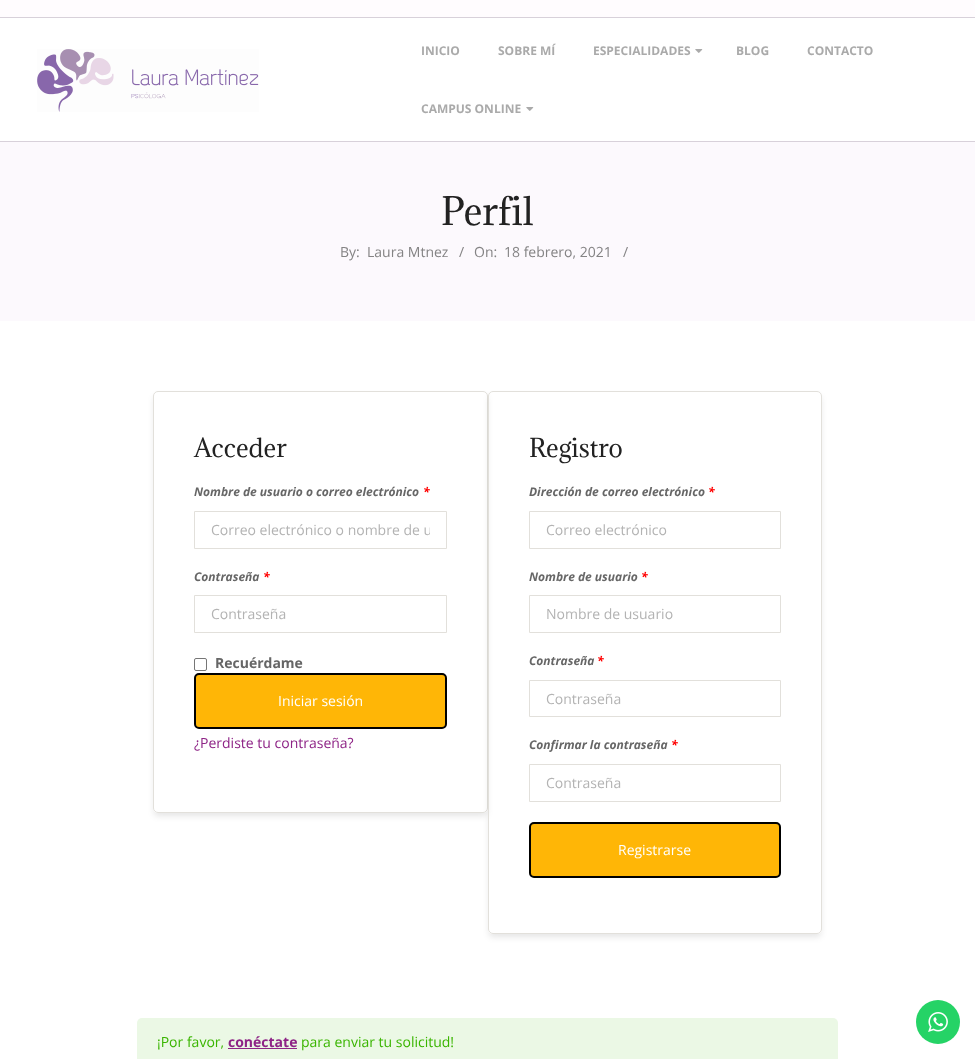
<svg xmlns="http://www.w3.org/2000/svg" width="975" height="1059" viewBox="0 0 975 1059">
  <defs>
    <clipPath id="clip1"><path d="M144 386H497V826H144ZM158 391H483C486 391 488 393 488 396V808C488 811 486 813 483 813H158C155 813 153 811 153 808V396C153 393 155 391 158 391Z" clip-rule="evenodd"/></clipPath>
    <clipPath id="clip2"><path d="M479 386H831V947H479ZM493 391H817C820 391 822 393 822 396V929C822 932 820 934 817 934H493C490 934 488 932 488 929V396C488 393 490 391 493 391Z" clip-rule="evenodd"/></clipPath>
    <clipPath id="clip3"><path d="M211 520h219v19H211z"/></clipPath>
  </defs>
  <rect width="100%" height="100%" fill="#fff"/>
  <path d="M0 0h975v17H0z" fill="#fffcfe"/>
  <path d="M0 17h975v1H0z" fill="#d8d1da"/>
  <path d="M0 141h975v1H0z" fill="#d8d1da"/>
  <image x="37" y="49" width="222" height="63" href="img/1.png"/>
  <image x="695" y="49" width="8" height="4" href="img/2.png"/>
  <image x="526" y="107" width="8" height="4" href="img/2.png"/>
  <path d="M0 142h975v179H0z" fill="#fcf9fd"/>
  <g clip-path="url(#clip1)">
    <rect x="154" y="396" width="333" height="420" rx="4" fill="#0000001a" filter="blur(3px)"/>
  </g>
  <rect x="153.5" y="391.5" width="334" height="421" rx="4.5" fill="none" stroke="#e2e0db"/>
  <path d="M194.5 511.5h252v37H194.5z" fill="none" stroke="#e2e0db"/>
  <path d="M194.5 595.5h252v37H194.5z" fill="none" stroke="#e2e0db"/>
  <rect x="194.5" y="658.5" width="12" height="12" rx="1.5" fill="none" stroke="#767676"/>
  <rect x="195" y="674" width="251" height="54" rx="4" fill="#ffb606" stroke="#000" stroke-width="2"/>
  <g clip-path="url(#clip2)">
    <rect x="489" y="396" width="332" height="541" rx="4" fill="#0000001a" filter="blur(3px)"/>
  </g>
  <rect x="488.5" y="391.5" width="333" height="542" rx="4.5" fill="none" stroke="#e2e0db"/>
  <path d="M529.5 511.5h251v37H529.5z" fill="none" stroke="#e2e0db"/>
  <path d="M529.5 595.5h251v37H529.5z" fill="none" stroke="#e2e0db"/>
  <path d="M529.5 680.5h251v36H529.5z" fill="none" stroke="#e2e0db"/>
  <path d="M529.5 764.5h251v37H529.5z" fill="none" stroke="#e2e0db"/>
  <rect x="530" y="823" width="250" height="54" rx="4" fill="#ffb606" stroke="#000" stroke-width="2"/>
  <rect x="137" y="1018" width="701" height="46" rx="5" fill="#ebf8e5"/>
  <path d="M228 1048h69v1H228z" fill="#8e2486"/>
  <circle cx="938" cy="1022" r="22" fill="#25d366"/>
  <image x="928" y="1012" width="20" height="20" href="img/3.png"/>
  <g font-family="Open Sans" font-size="12" font-weight="bold" fill="#aaa">
    <text x="421" y="55">INICIO</text>
    <text x="498" y="55">SOBRE MÍ</text>
    <text x="593" y="55">ESPECIALIDADES</text>
    <text x="736" y="55">BLOG</text>
    <text x="807" y="55">CONTACTO</text>
    <text x="421" y="113">CAMPUS ONLINE</text>
  </g>
  <text x="441" y="225" font-family="Adamina" font-size="36" fill="#222">Perfil</text>
  <g font-family="Open Sans" font-size="14" fill="#848384">
    <text x="340" y="257">By:</text>
    <text x="367" y="257">Laura Mtnez</text>
    <text x="459" y="257">/</text>
    <text x="474" y="257">On:</text>
    <text x="504" y="257">18 febrero, 2021</text>
    <text x="623" y="257">/</text>
  </g>
  <text x="194" y="457" font-family="Adamina" font-size="24" fill="#222">Acceder</text>
  <text x="194" y="496" font-family="Open Sans" font-size="12" font-weight="bold" font-style="italic" fill="#666">Nombre de usuario o correo electrónico</text>
  <text x="423" y="496" font-family="Open Sans" font-size="12" font-weight="bold" font-style="italic" fill="#f00">*</text>
  <g clip-path="url(#clip3)">
    <text x="211" y="535" font-family="Open Sans" font-size="14" fill="#b3b3b3">Correo electrónico o nombre de u</text>
  </g>
  <text x="194" y="581" font-family="Open Sans" font-size="12" font-weight="bold" font-style="italic" fill="#666">Contraseña</text>
  <text x="263" y="581" font-family="Open Sans" font-size="12" font-weight="bold" font-style="italic" fill="#f00">*</text>
  <text x="211" y="619" font-family="Open Sans" font-size="14" fill="#b3b3b3">Contraseña</text>
  <text x="215" y="668" font-family="Open Sans" font-size="14" font-weight="bold" fill="#666">Recuérdame</text>
  <text x="278" y="706" font-family="Open Sans" font-size="14" fill="#fff">Iniciar sesión</text>
  <text x="194" y="748" font-family="Open Sans" font-size="14" fill="#8e2486">¿Perdiste tu contraseña?</text>
  <text x="529" y="457" font-family="Adamina" font-size="24" fill="#222">Registro</text>
  <text x="529" y="496" font-family="Open Sans" font-size="12" font-weight="bold" font-style="italic" fill="#666">Dirección de correo electrónico</text>
  <text x="708" y="496" font-family="Open Sans" font-size="12" font-weight="bold" font-style="italic" fill="#f00">*</text>
  <text x="546" y="535" font-family="Open Sans" font-size="14" fill="#b3b3b3">Correo electrónico</text>
  <text x="529" y="581" font-family="Open Sans" font-size="12" font-weight="bold" font-style="italic" fill="#666">Nombre de usuario</text>
  <text x="641" y="581" font-family="Open Sans" font-size="12" font-weight="bold" font-style="italic" fill="#f00">*</text>
  <text x="546" y="619" font-family="Open Sans" font-size="14" fill="#b3b3b3">Nombre de usuario</text>
  <text x="529" y="665" font-family="Open Sans" font-size="12" font-weight="bold" font-style="italic" fill="#666">Contraseña</text>
  <text x="597" y="665" font-family="Open Sans" font-size="12" font-weight="bold" font-style="italic" fill="#f00">*</text>
  <text x="546" y="704" font-family="Open Sans" font-size="14" fill="#b3b3b3">Contraseña</text>
  <text x="529" y="749" font-family="Open Sans" font-size="12" font-weight="bold" font-style="italic" fill="#666">Confirmar la contraseña</text>
  <text x="671" y="749" font-family="Open Sans" font-size="12" font-weight="bold" font-style="italic" fill="#f00">*</text>
  <text x="546" y="788" font-family="Open Sans" font-size="14" fill="#b3b3b3">Contraseña</text>
  <text x="618" y="855" font-family="Open Sans" font-size="14" fill="#fff">Registrarse</text>
  <text x="157" y="1047" font-family="Open Sans" font-size="14" fill="#3ab500">¡Por favor,</text>
  <text x="228" y="1047" font-family="Open Sans" font-size="14" font-weight="bold" fill="#8e2486">conéctate</text>
  <text x="301" y="1047" font-family="Open Sans" font-size="14" fill="#3ab500">para enviar tu solicitud!</text>
</svg>
